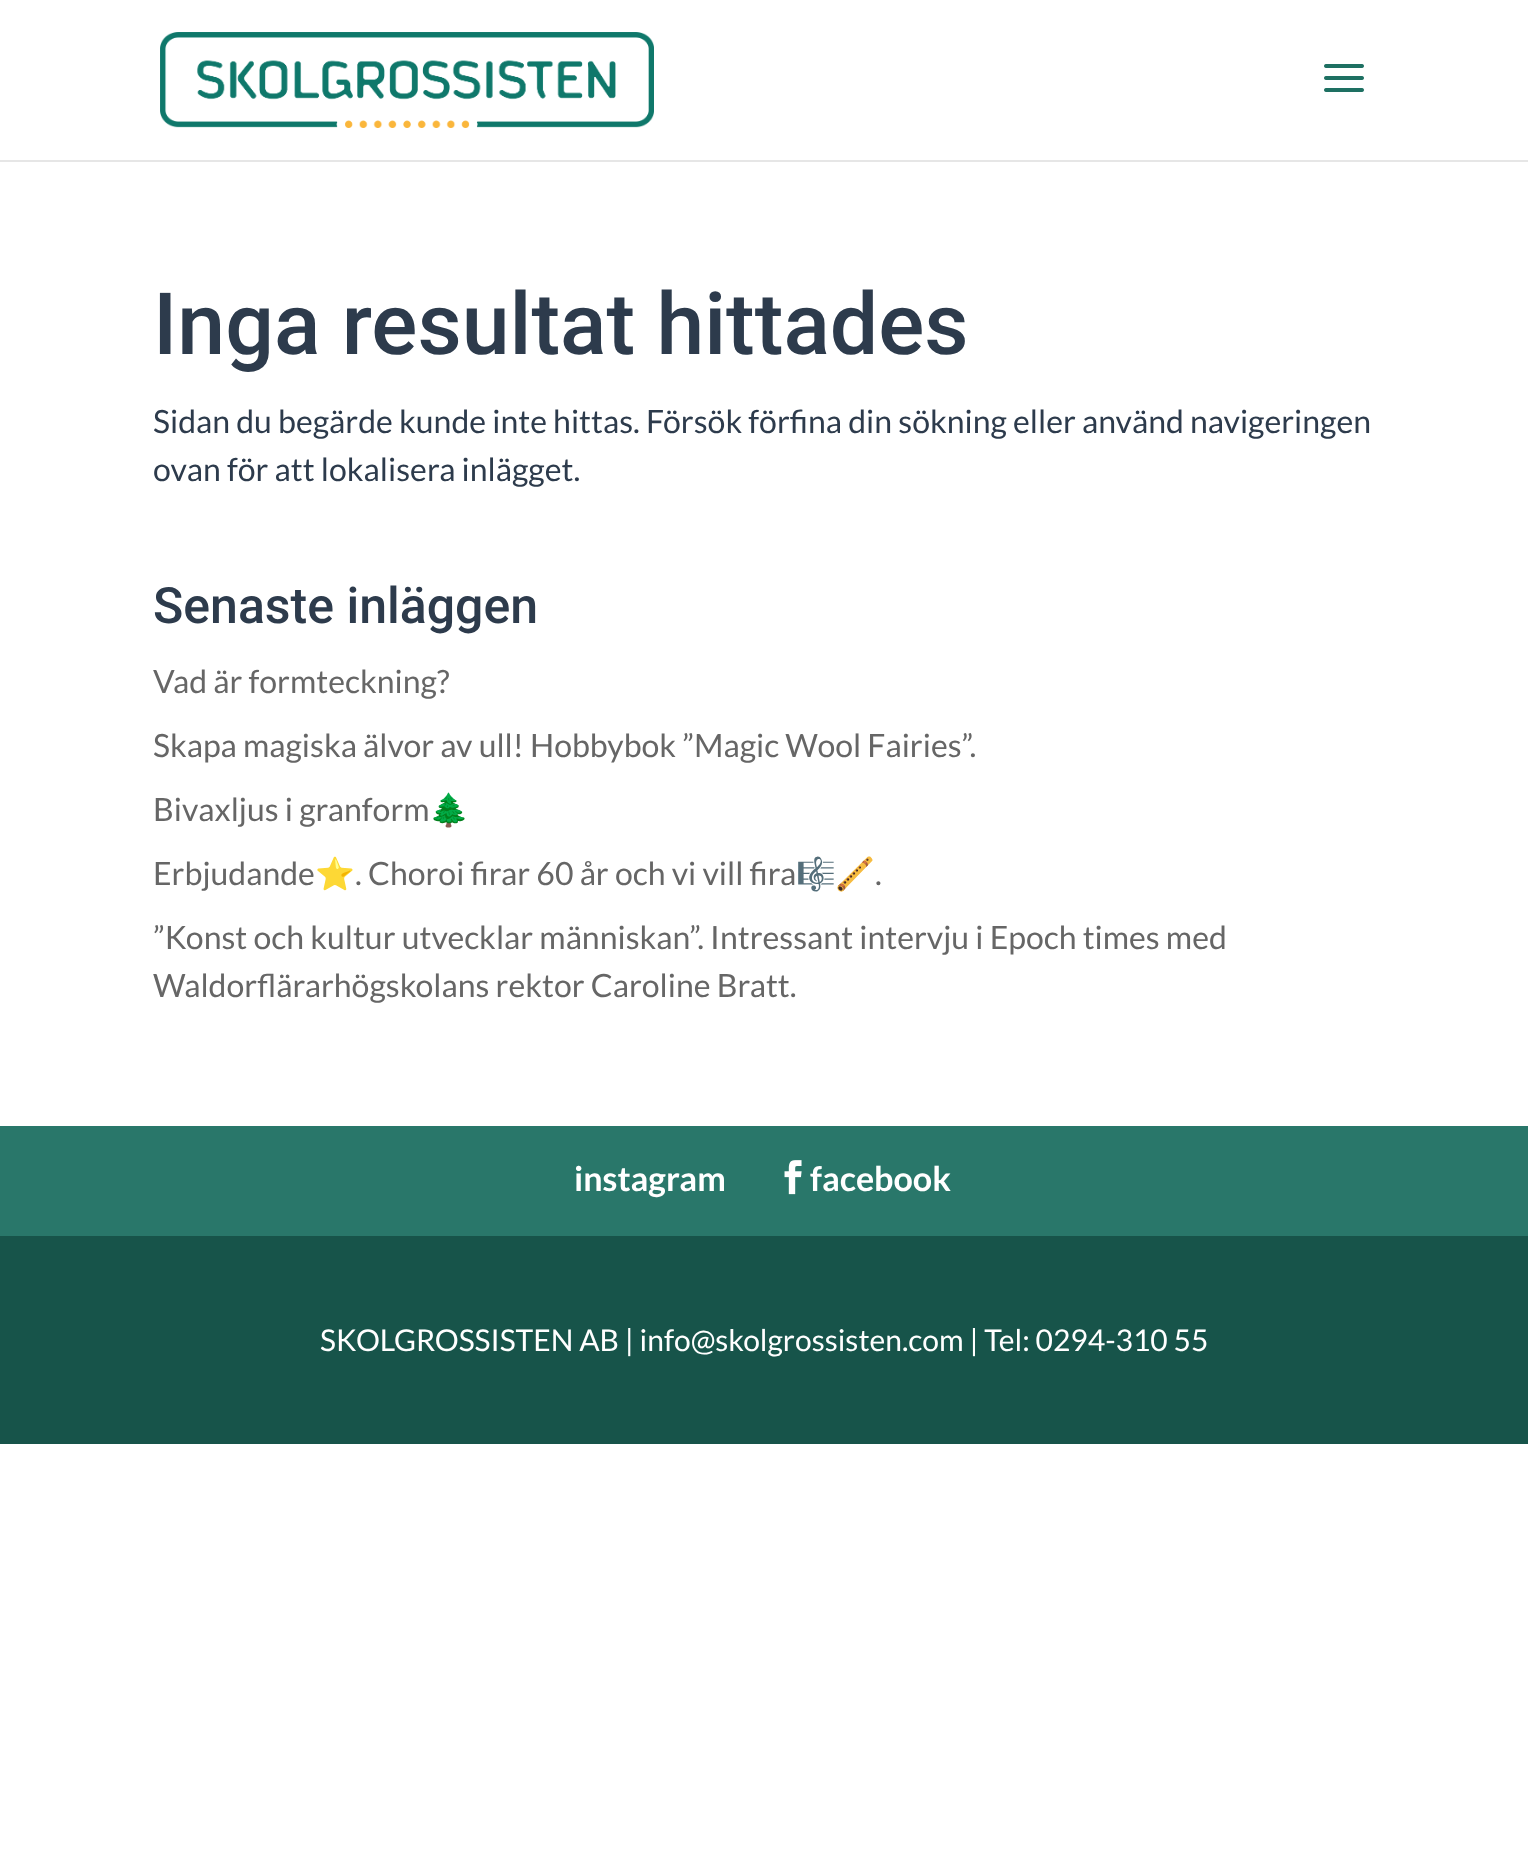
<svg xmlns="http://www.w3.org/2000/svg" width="1528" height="1869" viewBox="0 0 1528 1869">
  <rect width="100%" height="100%" fill="#fff"/>
  <path d="M0 160h1528v2H0z" fill="#e6e6e6"/>
  <image x="160" y="32" width="494" height="96" href="img/1.png"/>
  <image x="1324" y="64" width="40" height="28" href="img/2.png"/>
  <path d="M0 1126h1528v110H0z" fill="#29776a"/>
  <image x="784" y="1160" width="18" height="35" href="img/3.png"/>
  <path d="M0 1236h1528v208H0z" fill="#17544a"/>
  <text x="153" y="354" font-family="Roboto" font-size="86" font-weight="500" fill="#2d3b4c">Inga resultat hittades</text>
  <g font-family="Lato" font-size="32" fill="#2d3b4c">
    <text x="153" y="433">Sidan du begärde kunde inte hittas. Försök förfina din sökning eller använd navigeringen</text>
    <text x="153" y="481">ovan för att lokalisera inlägget.</text>
  </g>
  <text x="153" y="623" font-family="Roboto" font-size="50" font-weight="500" fill="#2d3b4c">Senaste inläggen</text>
  <g font-family="Lato" font-size="32" fill="#666">
    <text x="153" y="693">Vad är formteckning?</text>
    <text x="153" y="757">Skapa magiska älvor av ull! Hobbybok ”Magic Wool Fairies”.</text>
    <text x="153" y="821">Bivaxljus i granform</text>
  </g>
  <text x="429" y="821" font-family="Noto Color Emoji" font-size="32" fill="#666">🌲</text>
  <text x="153" y="885" font-family="Lato" font-size="32" fill="#666">Erbjudande</text>
  <text x="315" y="885" font-family="Noto Color Emoji" font-size="32" fill="#666">⭐️</text>
  <text x="355" y="885" font-family="Lato" font-size="32" fill="#666">. Choroi firar 60 år och vi vill fira</text>
  <text x="796" y="885" font-family="Noto Color Emoji" font-size="32" fill="#666">🎼🪈</text>
  <g font-family="Lato" font-size="32" fill="#666">
    <text x="875" y="885">.</text>
    <text x="153" y="949">”Konst och kultur utvecklar människan”. Intressant intervju i Epoch times med</text>
    <text x="153" y="997">Waldorflärarhögskolans rektor Caroline Bratt.</text>
  </g>
  <g font-family="Lato" font-size="34" font-weight="bold" fill="#fff">
    <text x="574" y="1191">instagram</text>
    <text x="810" y="1191">facebook</text>
  </g>
  <text x="320" y="1351" font-family="Lato" font-size="30" fill="#fff">SKOLGROSSISTEN AB | info@skolgrossisten.com | Tel: 0294-310 55</text>
</svg>
